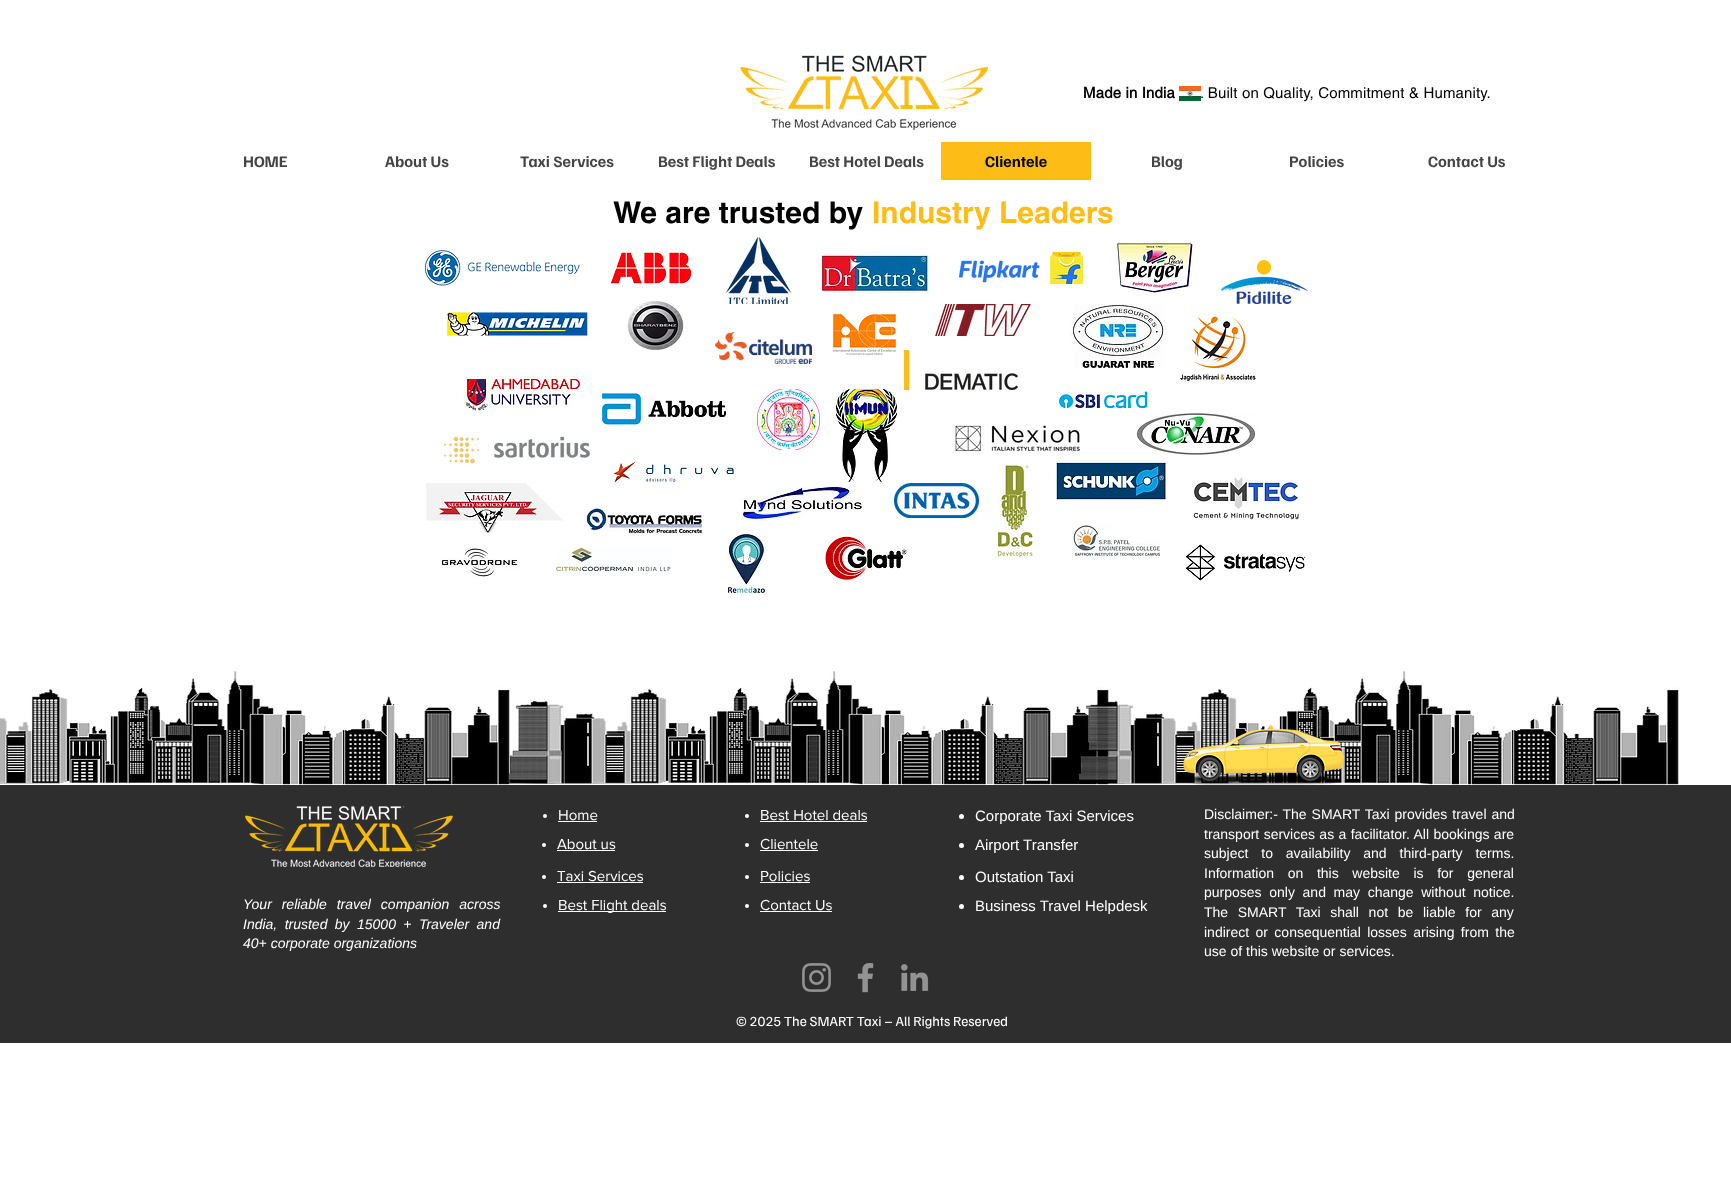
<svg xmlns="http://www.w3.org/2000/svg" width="1731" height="1192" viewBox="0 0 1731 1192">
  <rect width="100%" height="100%" fill="#fff"/>
  <path d="M0 785h1731v258H0z" fill="#2e2e2e"/>
  <image x="740" y="55" width="249" height="75" href="img/1.png"/>
  <image x="1179" y="86" width="22" height="15" href="img/2.png"/>
  <path d="M941 142h150v38H941z" fill="#febc17"/>
  <image x="424" y="250" width="156" height="36" href="img/3.png"/>
  <image x="611" y="252" width="81" height="32" href="img/4.png"/>
  <image x="725" y="237" width="67" height="67" href="img/5.png"/>
  <image x="815" y="254" width="120" height="40" href="img/6.png"/>
  <image x="959" y="252" width="124" height="32" href="img/7.png"/>
  <image x="1117" y="243" width="76" height="50" href="img/8.png"/>
  <image x="1221" y="260" width="87" height="44" href="img/9.png"/>
  <image x="447" y="312" width="141" height="24" href="img/10.png"/>
  <image x="627" y="301" width="57" height="49" href="img/11.png"/>
  <image x="715" y="332" width="97" height="32" href="img/12.png"/>
  <image x="833" y="314" width="63" height="42" href="img/13.png"/>
  <image x="935" y="304" width="96" height="32" href="img/14.png"/>
  <image x="1070" y="304" width="96" height="64" href="img/15.png"/>
  <image x="1180" y="314" width="76" height="68" href="img/16.png"/>
  <image x="904" y="350" width="114" height="40" href="img/17.png"/>
  <image x="466" y="379" width="114" height="32" href="img/18.png"/>
  <image x="602" y="392" width="124" height="33" href="img/19.png"/>
  <image x="757" y="389" width="63" height="61" href="img/20.png"/>
  <image x="836" y="389" width="61" height="93" href="img/21.png"/>
  <image x="1059" y="391" width="89" height="18" href="img/22.png"/>
  <image x="444" y="436" width="146" height="28" href="img/23.png"/>
  <image x="955" y="425" width="125" height="27" href="img/24.png"/>
  <image x="1136" y="412" width="122" height="43" href="img/25.png"/>
  <image x="426" y="483" width="137" height="50" href="img/26.png"/>
  <image x="613" y="461" width="121" height="22" href="img/27.png"/>
  <image x="741" y="485" width="124" height="41" href="img/28.png"/>
  <image x="894" y="483" width="85" height="35" href="img/29.png"/>
  <image x="997" y="465" width="36" height="92" href="img/30.png"/>
  <image x="1056" y="462" width="110" height="38" href="img/31.png"/>
  <image x="1193" y="477" width="106" height="43" href="img/32.png"/>
  <image x="442" y="546" width="78" height="32" href="img/33.png"/>
  <image x="584" y="507" width="119" height="29" href="img/34.png"/>
  <image x="727" y="528" width="40" height="68" href="img/35.png"/>
  <image x="825" y="536" width="82" height="44" href="img/36.png"/>
  <image x="1072" y="523" width="88" height="35" href="img/37.png"/>
  <image x="1186" y="544" width="120" height="37" href="img/38.png"/>
  <image x="556" y="547" width="116" height="25" href="img/39.png"/>
  <image x="509" y="671" width="600" height="114" href="img/41.png"/>
  <image x="0" y="671" width="510" height="114" href="img/40.png"/>
  <image x="1079" y="671" width="600" height="114" href="img/42.png"/>
  <image x="1183" y="725" width="162" height="60" href="img/43.png"/>
  <image x="245" y="806" width="208" height="61" href="img/44.png"/>
  <circle cx="545" cy="816" r="2" fill="#fff"/>
  <path d="M558 821h39v1H558z" fill="#fff"/>
  <circle cx="747" cy="816" r="2" fill="#fff"/>
  <path d="M760 821h107v1H760z" fill="#fff"/>
  <circle cx="961.5" cy="816.5" r="2.5" fill="#fff"/>
  <circle cx="544" cy="845" r="2" fill="#fff"/>
  <path d="M557 850h58v1H557z" fill="#fff"/>
  <circle cx="747" cy="845" r="2" fill="#fff"/>
  <path d="M760 850h58v1H760z" fill="#fff"/>
  <circle cx="961.5" cy="845.5" r="2.5" fill="#fff"/>
  <circle cx="544" cy="877" r="2" fill="#fff"/>
  <path d="M557 882h86v1H557z" fill="#fff"/>
  <circle cx="747" cy="877" r="2" fill="#fff"/>
  <path d="M760 882h50v1H760z" fill="#fff"/>
  <circle cx="961.5" cy="877.5" r="2.5" fill="#fff"/>
  <circle cx="545" cy="906" r="2" fill="#fff"/>
  <path d="M558 911h108v1H558z" fill="#fff"/>
  <circle cx="747" cy="906" r="2" fill="#fff"/>
  <path d="M760 911h72v1H760z" fill="#fff"/>
  <circle cx="961.5" cy="906.5" r="2.5" fill="#fff"/>
  <image x="802" y="963" width="29" height="29" href="img/45.png"/>
  <image x="857" y="963" width="17" height="30" href="img/46.png"/>
  <image x="900" y="964" width="29" height="27" href="img/47.png"/>
  <text x="1083" y="98" font-family="helvetica" font-size="15" font-weight="bold" letter-spacing="0.15" fill="#000">Made in India</text>
  <text x="1200" y="98" font-family="helvetica" font-size="15" letter-spacing="0.15" fill="#000">. Built on Quality, Commitment &amp; Humanity.</text>
  <g font-family="Familjen Grotesk" font-size="16" font-weight="bold" fill="#444">
    <text x="243" y="167">HOME</text>
    <text x="385" y="167">About Us</text>
    <text x="520" y="167">Taxi Services</text>
    <text x="658" y="167">Best Flight Deals</text>
    <text x="809" y="167">Best Hotel Deals</text>
  </g>
  <text x="985" y="167" font-family="Familjen Grotesk" font-size="16" font-weight="bold" fill="#000">Clientele</text>
  <g font-family="Familjen Grotesk" font-size="16" font-weight="bold" fill="#444">
    <text x="1151" y="167">Blog</text>
    <text x="1289" y="167">Policies</text>
    <text x="1428" y="167">Contact Us</text>
  </g>
  <text x="613" y="223" font-family="'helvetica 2'" font-size="30" font-weight="bold" fill="#000">We are trusted by</text>
  <text x="872" y="223" font-family="'helvetica 2'" font-size="30" font-weight="bold" fill="#febc17">Industry Leaders</text>
  <g font-family="'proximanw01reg'" font-size="15" fill="#fff">
    <text x="558" y="820">Home</text>
    <text x="760" y="820">Best Hotel deals</text>
  </g>
  <text x="975" y="821" font-family="Liberation Sans" font-size="15" fill="#fff">Corporate Taxi Services</text>
  <g font-family="Liberation Sans" font-size="14" fill="#fff">
    <text x="1204" y="819" word-spacing="1">Disclaimer:- The SMART Taxi provides travel and</text>
    <text x="1204" y="839" word-spacing="0.5">transport services as a facilitator. All bookings are</text>
    <text x="1204" y="858" word-spacing="9">subject to availability and third-party terms.</text>
    <text x="1204" y="878" word-spacing="9.75">Information on this website is for general</text>
    <text x="1204" y="897" word-spacing="3.75">purposes only and may change without notice.</text>
    <text x="1204" y="917" word-spacing="5.75">The SMART Taxi shall not be liable for any</text>
    <text x="1204" y="937" word-spacing="2.5">indirect or consequential losses arising from the</text>
    <text x="1204" y="956">use of this website or services.</text>
  </g>
  <g font-family="'proximanw01reg'" font-size="15" fill="#fff">
    <text x="557" y="849">About us</text>
    <text x="760" y="849">Clientele</text>
  </g>
  <text x="975" y="850" font-family="Liberation Sans" font-size="15" fill="#fff">Airport Transfer</text>
  <g font-family="'proximanw01reg'" font-size="15" fill="#fff">
    <text x="557" y="881">Taxi Services</text>
    <text x="760" y="881">Policies</text>
  </g>
  <text x="975" y="882" font-family="Liberation Sans" font-size="15" fill="#fff">Outstation Taxi</text>
  <g font-family="Liberation Sans" font-size="14" font-style="italic" fill="#fff">
    <text x="243" y="909" word-spacing="6">Your reliable travel companion across</text>
    <text x="243" y="929" word-spacing="3.5">India, trusted by 15000 + Traveler and</text>
    <text x="243" y="948">40+ corporate organizations</text>
  </g>
  <g font-family="'proximanw01reg'" font-size="15" fill="#fff">
    <text x="558" y="910">Best Flight deals</text>
    <text x="760" y="910">Contact Us</text>
  </g>
  <text x="975" y="911" font-family="Liberation Sans" font-size="15" fill="#fff">Business Travel Helpdesk</text>
  <text x="736" y="1026" font-family="Familjen Grotesk" font-size="14" fill="#fff">© 2025 The SMART Taxi – All Rights Reserved</text>
</svg>
